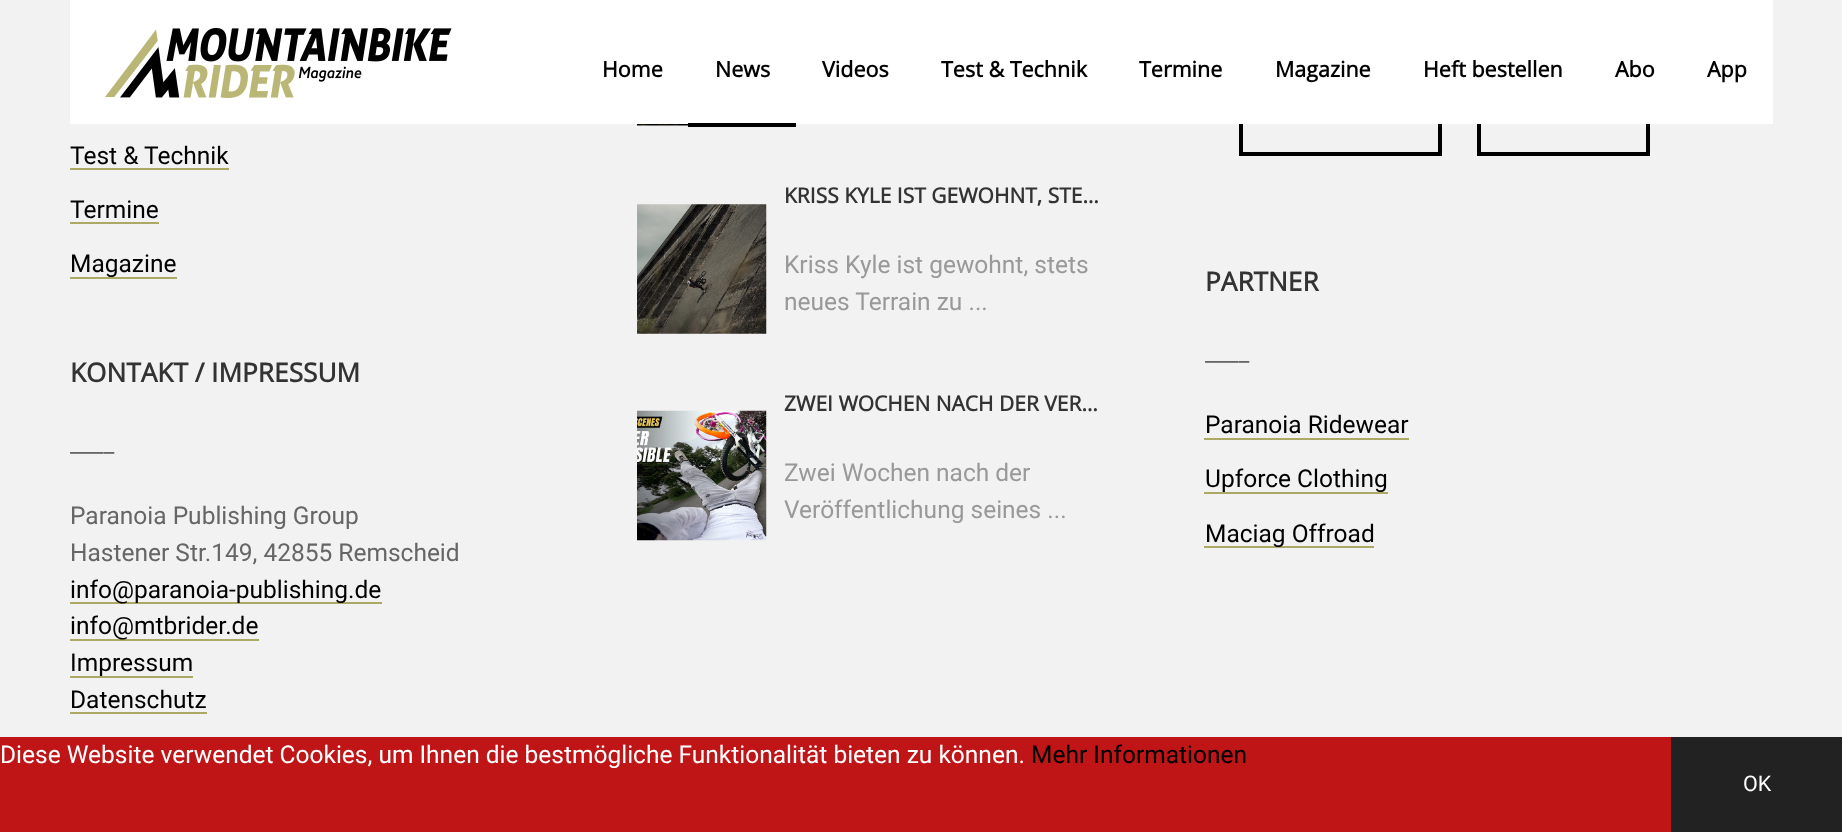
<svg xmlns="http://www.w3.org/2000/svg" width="1842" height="832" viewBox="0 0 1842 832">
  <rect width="100%" height="100%" fill="#f2f2f2"/>
  <path d="M1241 84h199v70H1241z" fill="none" stroke="#000" stroke-width="4"/>
  <path d="M1479 84h169v70H1479z" fill="none" stroke="#000" stroke-width="4"/>
  <path d="M70 0h1703v124H70z" fill="#fff"/>
  <image x="105" y="28" width="347" height="70" href="img/1.png"/>
  <path d="M688 123h108v4H688z" fill="#000"/>
  <path d="M70 168h159v2H70z" fill="#aba963"/>
  <path d="M70 222h89v2H70z" fill="#aba963"/>
  <path d="M70 277h107v2H70z" fill="#aba963"/>
  <path d="M70 602h312v2H70z" fill="#aba963"/>
  <path d="M70 639h189v2H70z" fill="#aba963"/>
  <path d="M70 676h123v2H70z" fill="#aba963"/>
  <path d="M70 712h137v2H70z" fill="#aba963"/>
  <image x="637" y="124" width="51" height="2" href="img/2.png"/>
  <image x="637" y="204" width="130" height="130" href="img/3.png"/>
  <image x="637" y="410" width="130" height="131" href="img/4.png"/>
  <path d="M1204 438h205v2H1204z" fill="#aba963"/>
  <path d="M1204 492h184v2H1204z" fill="#aba963"/>
  <path d="M1204 546h170v2H1204z" fill="#aba963"/>
  <path d="M0 737h1671v95H0z" fill="#bf1517"/>
  <path d="M1671 737h171v95H1671z" fill="#222"/>
  <g font-family="Open Sans" font-size="21.5" font-weight="bold" fill="#000">
    <text x="602" y="77">Home</text>
    <text x="715" y="77">News</text>
    <text x="822" y="77">Videos</text>
    <text x="941" y="77">Test &amp; Technik</text>
    <text x="1139" y="77">Termine</text>
    <text x="1275" y="77">Magazine</text>
    <text x="1423" y="77">Heft bestellen</text>
    <text x="1615" y="77">Abo</text>
    <text x="1707" y="77">App</text>
  </g>
  <g font-family="Roboto" font-size="24.5" fill="#000">
    <text x="70" y="164">Test &amp; Technik</text>
    <text x="70" y="218">Termine</text>
    <text x="70" y="272">Magazine</text>
  </g>
  <text x="70" y="382" font-family="Open Sans" font-size="26.25" font-weight="bold" fill="#333">KONTAKT / IMPRESSUM</text>
  <g font-family="Roboto" font-size="24.5" fill="#666">
    <text x="70" y="452">____</text>
    <text x="70" y="524">Paranoia Publishing Group</text>
    <text x="70" y="561">Hastener Str.149, 42855 Remscheid</text>
  </g>
  <g font-family="Roboto" font-size="24.5" fill="#000">
    <text x="70" y="598">info@paranoia-publishing.de</text>
    <text x="70" y="634">info@mtbrider.de</text>
    <text x="70" y="671">Impressum</text>
    <text x="70" y="708">Datenschutz</text>
  </g>
  <text x="784" y="203" font-family="Open Sans" font-size="21" font-weight="bold" fill="#333">KRISS KYLE IST GEWOHNT, STE…</text>
  <g font-family="Roboto" font-size="24.5" fill="#999">
    <text x="784" y="273">Kriss Kyle ist gewohnt, stets</text>
    <text x="784" y="310">neues Terrain zu ...</text>
  </g>
  <text x="784" y="411" font-family="Open Sans" font-size="21" font-weight="bold" fill="#333">ZWEI WOCHEN NACH DER VER…</text>
  <g font-family="Roboto" font-size="24.5" fill="#999">
    <text x="784" y="481">Zwei Wochen nach der</text>
    <text x="784" y="518">Veröffentlichung seines ...</text>
  </g>
  <text x="1205" y="291" font-family="Open Sans" font-size="26.25" font-weight="bold" fill="#333">PARTNER</text>
  <text x="1205" y="361" font-family="Roboto" font-size="24.5" fill="#666">____</text>
  <g font-family="Roboto" font-size="24.5" fill="#000">
    <text x="1205" y="433">Paranoia Ridewear</text>
    <text x="1205" y="487">Upforce Clothing</text>
    <text x="1205" y="542">Maciag Offroad</text>
  </g>
  <text x="0" y="763" font-family="Roboto" font-size="24.5" fill="#fff">Diese Website verwendet Cookies, um Ihnen die bestmögliche Funktionalität bieten zu können.</text>
  <text x="1031" y="763" font-family="Roboto" font-size="24.5" fill="#000">Mehr Informationen</text>
  <text x="1743" y="791" font-family="Roboto" font-size="21.5" fill="#fff">OK</text>
</svg>
